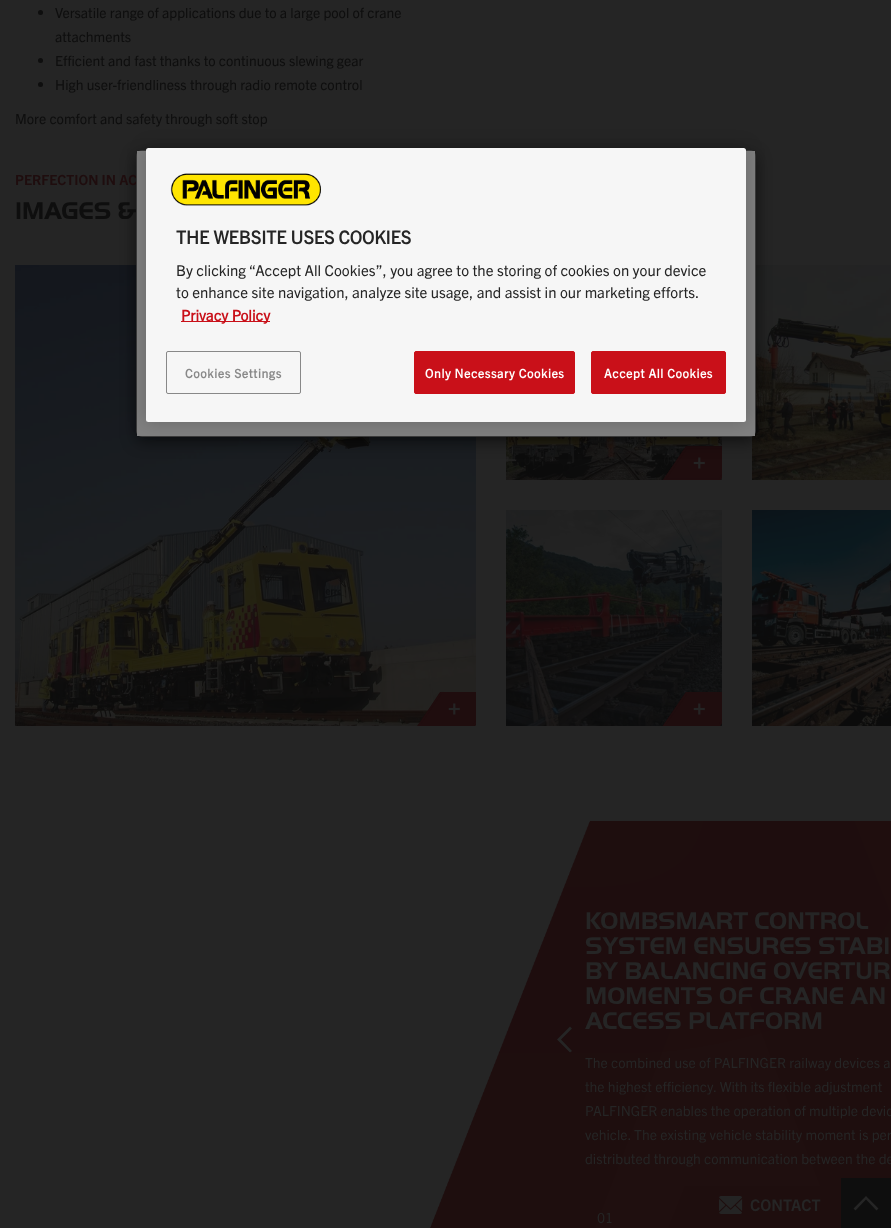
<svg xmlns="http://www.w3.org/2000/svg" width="891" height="1228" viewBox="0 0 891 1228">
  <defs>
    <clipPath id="clip1"><path d="M15 265h461v461H15z"/></clipPath>
    <clipPath id="clip2"><path d="M506 265h216v215H506z"/></clipPath>
    <clipPath id="clip3"><path d="M506 510h216v216H506z"/></clipPath>
  </defs>
  <rect width="100%" height="100%" fill="#252525"/>
  <circle cx="40.5" cy="12.5" r="2.5" fill="#0e0e0e"/>
  <circle cx="40.5" cy="60.5" r="2.5" fill="#0e0e0e"/>
  <circle cx="40.5" cy="84.5" r="2.5" fill="#0e0e0e"/>
  <image x="15" y="265" width="461" height="461" href="img/1.png"/>
  <g clip-path="url(#clip1)">
    <path d="M440 692H497L475 726H418Z" fill="#1f0d0e"/>
    <path d="M441 693H496L474 725H419Z" fill="none" stroke="#1f0d0e" stroke-width="2"/>
  </g>
  <image x="448" y="703" width="12" height="12" href="img/2.png"/>
  <image x="506" y="437" width="216" height="43" href="img/3.png"/>
  <g clip-path="url(#clip2)">
    <path d="M686 446H743L720 480H663Z" fill="#1f0d0e"/>
    <path d="M686.5 447.5H741.5L719.5 479.5H664.5Z" fill="none" stroke="#1f0d0e" stroke-width="2"/>
  </g>
  <image x="693" y="457" width="12" height="12" href="img/2.png"/>
  <image x="506" y="510" width="216" height="216" href="img/4.png"/>
  <g clip-path="url(#clip3)">
    <path d="M686 692H743L720 726H663Z" fill="#1f0d0e"/>
    <path d="M686.5 693H741.5L719.5 725H664.5Z" fill="none" stroke="#1f0d0e" stroke-width="2"/>
  </g>
  <image x="693" y="703" width="12" height="12" href="img/2.png"/>
  <image x="752" y="265" width="139" height="215" href="img/5.png"/>
  <image x="752" y="510" width="139" height="216" href="img/6.png"/>
  <rect x="136" y="155" width="620" height="287" rx="6" fill="#00000080" filter="blur(7.5px)"/>
  <image x="430" y="821" width="461" height="407" href="img/7.png"/>
  <path d="M570 1026.5L557 1039.5L570 1052.5L572 1051L561 1039.5L572 1028.5Z" fill="#252525"/>
  <image x="719" y="1196" width="24" height="18" href="img/8.png"/>
  <path d="M841 1178h50v50H841z" fill="#0e0e0e"/>
  <path d="M866 1196L853.5 1208.5L855.5 1210.5L866 1199.5L876.5 1210.5L878.5 1208.5Z" fill="#252525"/>
  <g font-family="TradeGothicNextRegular" font-size="14" fill="#0e0e0e">
    <text x="55" y="18">Versatile range of applications due to a large pool of crane</text>
    <text x="55" y="42">attachments</text>
    <text x="55" y="66">Efficient and fast thanks to continuous slewing gear</text>
    <text x="55" y="90">High user-friendliness through radio remote control</text>
    <text x="15" y="124">More comfort and safety through soft stop</text>
  </g>
  <text x="15" y="185" font-family="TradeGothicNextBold" font-size="14" font-weight="bold" fill="#1f0d0e">PERFECTION IN AC</text>
  <text x="15" y="219" font-family="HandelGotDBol" font-size="25" fill="#0e0e0e">IMAGES &amp;</text>
  <rect x="136.5" y="150.5" width="619" height="286" rx="5.5" fill="none" stroke="#3b3b3b"/>
  <path d="M137 151h618v285H137z" fill="#808080"/>
  <g font-family="HandelGotDBol" font-size="25" fill="#252525">
    <text x="585" y="929">KOMBSMART CONTROL</text>
    <text x="585" y="954">SYSTEM ENSURES STABI</text>
    <text x="585" y="979">BY BALANCING OVERTUR</text>
    <text x="585" y="1004">MOMENTS OF CRANE AN</text>
    <text x="585" y="1029">ACCESS PLATFORM</text>
  </g>
  <g font-family="TradeGothicNextRegular" font-size="14" fill="#252525">
    <text x="585" y="1068">The combined use of PALFINGER railway devices a</text>
    <text x="585" y="1092">the highest efficiency. With its flexible adjustment</text>
    <text x="585" y="1116">PALFINGER enables the operation of multiple devic</text>
    <text x="585" y="1140">vehicle. The existing vehicle stability moment is per</text>
    <text x="585" y="1164">distributed through communication between the de</text>
    <text x="597" y="1223">01</text>
  </g>
  <text x="750" y="1211" font-family="TradeGothicNextBold" font-size="16" font-weight="bold" fill="#252525">CONTACT</text>
  <rect x="146" y="148" width="600" height="274" rx="2.5" fill="#00000033" filter="blur(9px)"/>
  <rect x="146" y="148" width="600" height="274" rx="2.5" fill="#f6f6f6"/>
  <image x="170" y="173" width="151" height="33" href="img/9.png"/>
  <text x="176" y="244" font-family="TradeGothicNextRegular" font-size="18" font-weight="bold" fill="#252525">THE WEBSITE USES COOKIES</text>
  <g font-family="TradeGothicNextRegular" font-size="15" fill="#252525">
    <text x="176" y="276">By clicking “Accept All Cookies”, you agree to the storing of cookies on your device</text>
    <text x="176" y="298">to enhance site navigation, analyze site usage, and assist in our marketing efforts.</text>
  </g>
  <path d="M181 321h89v1H181z" fill="#c91019"/>
  <text x="181" y="321" font-family="TradeGothicNextRegular" font-size="15" font-weight="bold" fill="#c91019">Privacy Policy</text>
  <rect x="166.5" y="351.5" width="134" height="42" rx="1.5" fill="none" stroke="#888"/>
  <text x="185" y="378" font-family="TradeGothicNextRegular" font-size="12.25" font-weight="bold" letter-spacing="0.6" fill="#888">Cookies Settings</text>
  <rect x="414.5" y="351.5" width="160" height="42" rx="1.5" fill="#c91019" stroke="#c91019"/>
  <text x="425" y="378" font-family="TradeGothicNextRegular" font-size="12.25" font-weight="bold" letter-spacing="0.6" fill="#fff">Only Necessary Cookies</text>
  <rect x="591.5" y="351.5" width="134" height="42" rx="1.5" fill="#c91019" stroke="#c91019"/>
  <text x="604" y="378" font-family="TradeGothicNextRegular" font-size="12.25" font-weight="bold" letter-spacing="0.6" fill="#fff">Accept All Cookies</text>
</svg>
